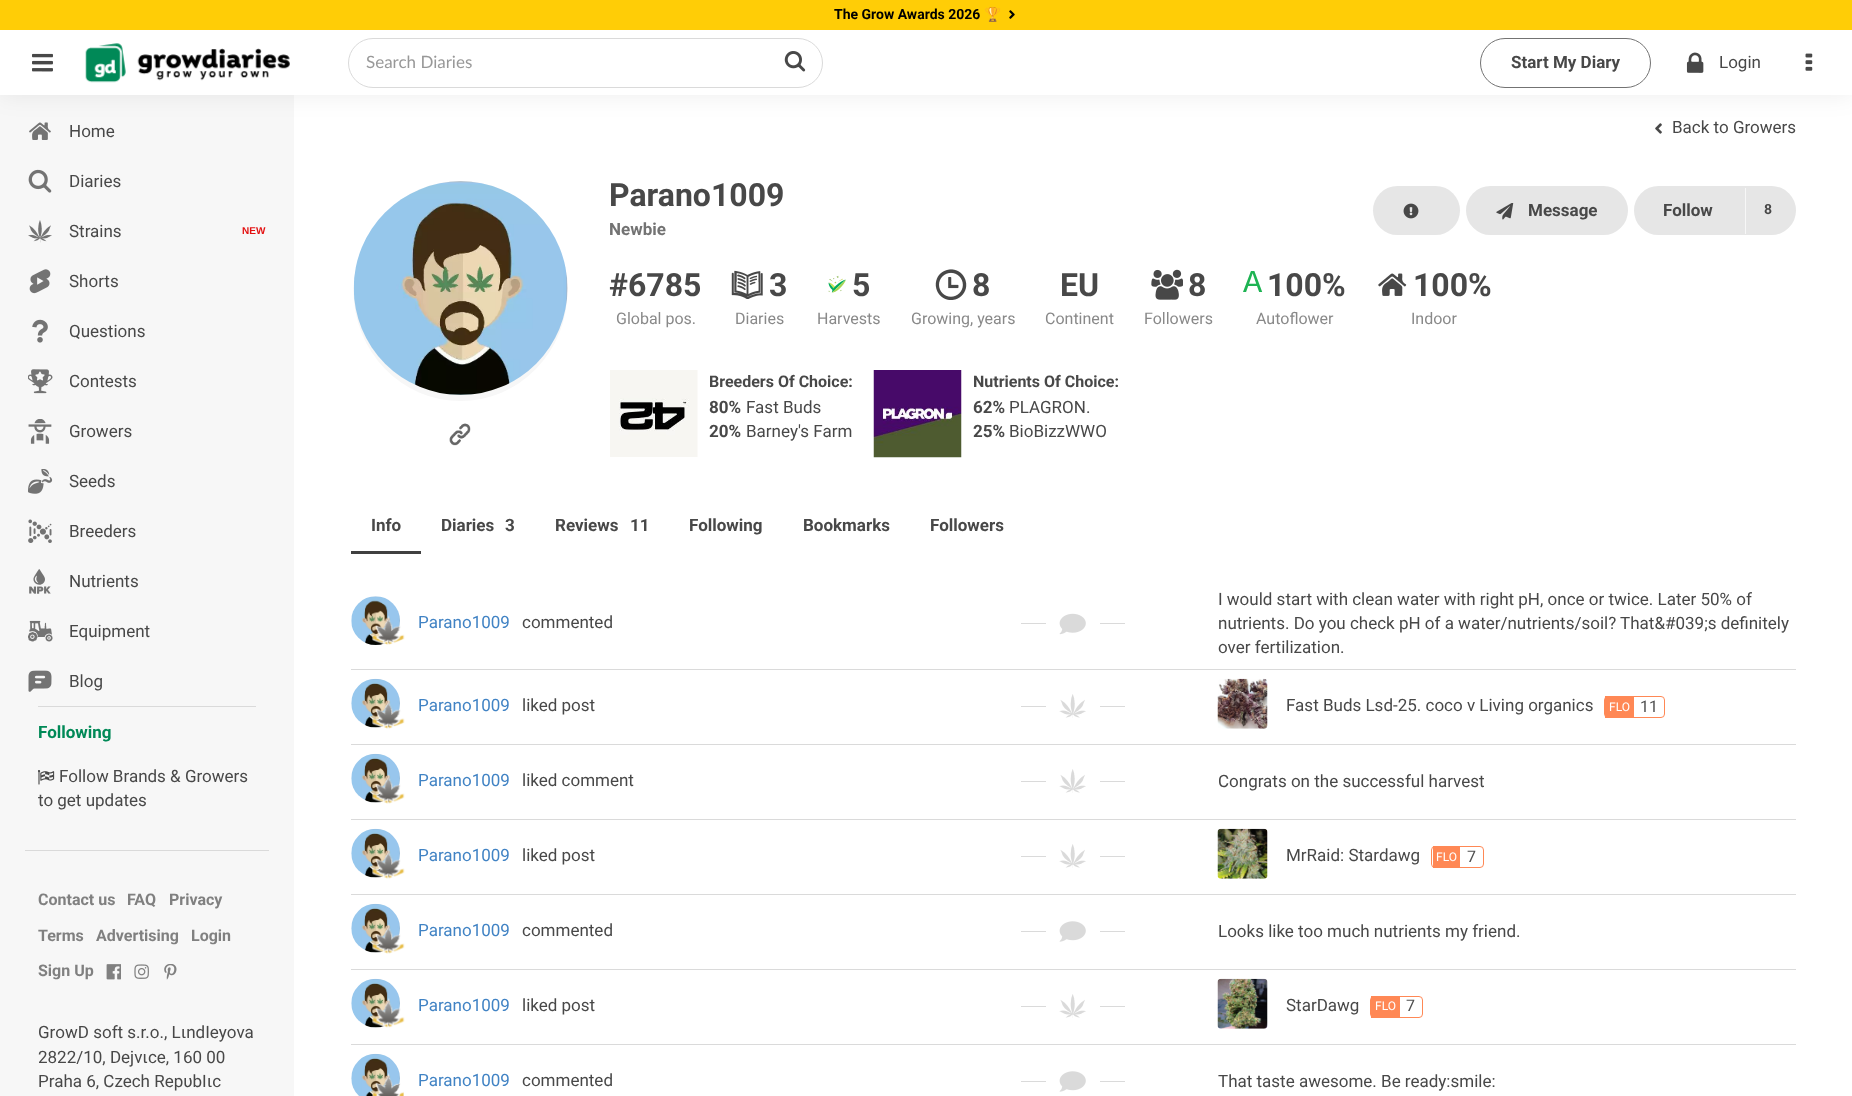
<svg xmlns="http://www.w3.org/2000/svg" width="1852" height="1096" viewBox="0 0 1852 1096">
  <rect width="100%" height="100%" fill="#fff"/>
  <path d="M0 95h294v1001H0z" fill="#f7f7f7"/>
  <image x="29" y="122" width="22" height="18" href="img/7.png"/>
  <image x="1655" y="123" width="7" height="11" href="img/23.png"/>
  <path d="M0 30h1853v65H0z" fill="#00000012" filter="blur(12.5px)"/>
  <path d="M0 0h1852v30H0z" fill="#ffcd06"/>
  <image x="1009" y="10" width="6" height="9" href="img/1.png"/>
  <path d="M0 30h1852v65H0z" fill="#fff"/>
  <image x="32" y="53" width="21" height="19" href="img/2.png"/>
  <image x="85" y="43" width="205" height="40" href="img/3.png"/>
  <rect x="348.5" y="38.5" width="474" height="49" rx="24.5" fill="none" stroke="#dadada"/>
  <image x="784" y="51" width="22" height="21" href="img/4.png"/>
  <rect x="1480.5" y="38.5" width="170" height="49" rx="24.5" fill="none" stroke="#737373"/>
  <image x="1686" y="52" width="18" height="21" href="img/5.png"/>
  <image x="1805" y="53" width="8" height="18" href="img/6.png"/>
  <image x="28" y="169" width="24" height="24" href="img/8.png"/>
  <image x="28" y="220" width="24" height="23" href="img/9.png"/>
  <image x="29" y="269" width="22" height="25" href="img/10.png"/>
  <image x="32" y="319" width="16" height="24" href="img/11.png"/>
  <image x="28" y="369" width="25" height="25" href="img/12.png"/>
  <image x="28" y="419" width="24" height="25" href="img/13.png"/>
  <image x="28" y="469" width="25" height="25" href="img/14.png"/>
  <image x="28" y="519" width="24" height="24" href="img/15.png"/>
  <image x="29" y="569" width="22" height="25" href="img/16.png"/>
  <image x="28" y="620" width="25" height="22" href="img/17.png"/>
  <image x="28" y="670" width="24" height="22" href="img/18.png"/>
  <path d="M38 706h218v1H38z" fill="#dadada"/>
  <image x="38" y="770" width="17" height="15" href="img/19.png"/>
  <path d="M25 850h244v1H25z" fill="#dadada"/>
  <image x="106" y="964" width="15" height="16" href="img/20.png"/>
  <image x="134" y="964" width="15" height="15" href="img/21.png"/>
  <image x="164" y="964" width="13" height="16" href="img/22.png"/>
  <ellipse cx="460.5" cy="291" rx="107" ry="110" fill="#f7f7f7"/>
  <image x="353" y="181" width="215" height="214" href="img/24.png"/>
  <image x="449" y="423" width="22" height="23" href="img/25.png"/>
  <rect x="1373" y="186" width="87" height="49" rx="24.5" fill="#e6e6e6"/>
  <image x="1403" y="203" width="16" height="16" href="img/26.png"/>
  <rect x="1466" y="186" width="162" height="49" rx="24.5" fill="#e6e6e6"/>
  <image x="1496" y="203" width="18" height="17" href="img/27.png"/>
  <rect x="1634" y="186" width="162" height="49" rx="24.5" fill="#e6e6e6"/>
  <path d="M1745 188h1v46H1745z" fill="#f7f7f7"/>
  <image x="731" y="270" width="32" height="29" href="img/28.png"/>
  <image x="828" y="275" width="18" height="18" href="img/29.png"/>
  <image x="935" y="269" width="32" height="31" href="img/30.png"/>
  <image x="1151" y="269" width="32" height="31" href="img/31.png"/>
  <image x="1378" y="273" width="29" height="23" href="img/32.png"/>
  <image x="610" y="370" width="88" height="87" href="img/33.png"/>
  <image x="873" y="370" width="89" height="88" href="img/34.png"/>
  <path d="M351 551h70v3H351z" fill="#404040"/>
  <path d="M351 669h1445v1H351z" fill="#dadada"/>
  <image x="351" y="596" width="49" height="49" href="img/35.png"/>
  <image x="372" y="615" width="33" height="30" href="img/36.png"/>
  <path d="M1021 623h25v1H1021z" fill="#dadada"/>
  <image x="1059" y="613" width="27" height="22" href="img/37.png"/>
  <path d="M1100 623h25v1H1100z" fill="#dadada"/>
  <path d="M351 744h1445v1H351z" fill="#dadada"/>
  <image x="351" y="678" width="49" height="50" href="img/38.png"/>
  <image x="372" y="699" width="33" height="30" href="img/39.png"/>
  <path d="M1021 706h25v1H1021z" fill="#dadada"/>
  <image x="1059" y="694" width="27" height="24" href="img/40.png"/>
  <path d="M1100 706h25v1H1100z" fill="#dadada"/>
  <image x="1217" y="678" width="51" height="51" href="img/41.png"/>
  <rect x="1604.5" y="696.5" width="60" height="21" rx="3.5" fill="none" stroke="#f85"/>
  <path d="M1605 696h29v22H1605z" fill="#f85"/>
  <path d="M351 819h1445v1H351z" fill="#dadada"/>
  <image x="351" y="753" width="49" height="50" href="img/42.png"/>
  <image x="372" y="774" width="33" height="30" href="img/43.png"/>
  <path d="M1021 781h25v1H1021z" fill="#dadada"/>
  <image x="1059" y="769" width="27" height="24" href="img/40.png"/>
  <path d="M1100 781h25v1H1100z" fill="#dadada"/>
  <path d="M351 894h1445v1H351z" fill="#dadada"/>
  <image x="351" y="828" width="49" height="50" href="img/38.png"/>
  <image x="372" y="849" width="33" height="30" href="img/43.png"/>
  <path d="M1021 856h25v1H1021z" fill="#dadada"/>
  <image x="1059" y="844" width="27" height="24" href="img/40.png"/>
  <path d="M1100 856h25v1H1100z" fill="#dadada"/>
  <image x="1217" y="828" width="51" height="51" href="img/44.png"/>
  <rect x="1431.5" y="846.5" width="52" height="21" rx="3.5" fill="none" stroke="#f85"/>
  <path d="M1433 846h27v22H1433z" fill="#f85"/>
  <path d="M351 969h1445v1H351z" fill="#dadada"/>
  <image x="351" y="903" width="49" height="50" href="img/38.png"/>
  <image x="372" y="924" width="33" height="30" href="img/43.png"/>
  <path d="M1021 931h25v1H1021z" fill="#dadada"/>
  <image x="1059" y="921" width="27" height="21" href="img/45.png"/>
  <path d="M1100 931h25v1H1100z" fill="#dadada"/>
  <path d="M351 1044h1445v1H351z" fill="#dadada"/>
  <image x="351" y="978" width="49" height="50" href="img/46.png"/>
  <image x="372" y="998" width="33" height="30" href="img/47.png"/>
  <path d="M1021 1006h25v1H1021z" fill="#dadada"/>
  <image x="1059" y="994" width="27" height="24" href="img/40.png"/>
  <path d="M1100 1006h25v1H1100z" fill="#dadada"/>
  <image x="1217" y="978" width="51" height="51" href="img/48.png"/>
  <rect x="1370.5" y="996.5" width="52" height="21" rx="3.5" fill="none" stroke="#f85"/>
  <path d="M1371 996h29v22H1371z" fill="#f85"/>
  <image x="351" y="1053" width="49" height="43" href="img/49.png"/>
  <image x="372" y="1073" width="32" height="23" href="img/50.png"/>
  <path d="M1021 1081h25v1H1021z" fill="#dadada"/>
  <image x="1059" y="1071" width="27" height="21" href="img/45.png"/>
  <path d="M1100 1081h25v1H1100z" fill="#dadada"/>
  <text x="834" y="19" font-family="Roboto" font-size="14" font-weight="bold" fill="#000">The Grow Awards 2026</text>
  <text x="984" y="19" font-family="Noto Color Emoji" font-size="14" font-weight="bold" fill="#000">🏆</text>
  <text x="366" y="68" font-family="Lato" font-size="17" fill="#989898">Search Diaries</text>
  <text x="1511" y="68" font-family="Roboto" font-size="17" font-weight="bold" fill="#484848">Start My Diary</text>
  <g font-family="Roboto" font-size="17" fill="#484848">
    <text x="1719" y="68">Login</text>
    <text x="69" y="137">Home</text>
    <text x="69" y="187">Diaries</text>
    <text x="69" y="237">Strains</text>
  </g>
  <text x="242" y="234" font-family="Liberation Sans" font-size="10" font-weight="bold" fill="#e31111">NEW</text>
  <g font-family="Roboto" font-size="17" fill="#484848">
    <text x="69" y="287">Shorts</text>
    <text x="69" y="337">Questions</text>
    <text x="69" y="387">Contests</text>
    <text x="69" y="437">Growers</text>
    <text x="69" y="487">Seeds</text>
    <text x="69" y="537">Breeders</text>
    <text x="69" y="587">Nutrients</text>
    <text x="69" y="637">Equipment</text>
    <text x="69" y="687">Blog</text>
  </g>
  <text x="38" y="738" font-family="Roboto" font-size="17" font-weight="bold" fill="#008957">Following</text>
  <g font-family="Roboto" font-size="17" fill="#484848">
    <text x="59" y="782">Follow Brands &amp; Growers</text>
    <text x="38" y="806">to get updates</text>
  </g>
  <g font-family="Roboto" font-size="16" font-weight="bold" fill="#808080">
    <text x="38" y="905">Contact us</text>
    <text x="127" y="905">FAQ</text>
    <text x="169" y="905">Privacy</text>
    <text x="38" y="941">Terms</text>
    <text x="96" y="941">Advertising</text>
    <text x="191" y="941">Login</text>
    <text x="38" y="976">Sign Up</text>
  </g>
  <g font-family="Roboto" font-size="17" fill="#484848">
    <text x="38" y="1038">GrοwD sοft s.r.ο., LιndΙeyοva</text>
    <text x="38" y="1063">2822/10, Dejvιce, 160 00</text>
    <text x="38" y="1087">Praha 6, Czech RepυbΙιc</text>
    <text x="1672" y="133">Back to Growers</text>
  </g>
  <text x="609" y="206" font-family="Roboto" font-size="32" font-weight="bold" fill="#484848">Parano1009</text>
  <text x="609" y="235" font-family="Roboto" font-size="17" font-weight="bold" fill="#737373">Newbie</text>
  <g font-family="Roboto" font-size="17" font-weight="bold" fill="#484848">
    <text x="1528" y="216">Message</text>
    <text x="1663" y="216">Follow</text>
  </g>
  <text x="1764" y="214" font-family="Roboto" font-size="14" font-weight="bold" fill="#484848">8</text>
  <text x="609" y="296" font-family="Roboto" font-size="32" font-weight="bold" fill="#484848">#6785</text>
  <text x="616" y="324" font-family="Roboto" font-size="16" fill="#898989">Global pos.</text>
  <text x="769" y="296" font-family="Roboto" font-size="32" font-weight="bold" fill="#484848">3</text>
  <text x="735" y="324" font-family="Roboto" font-size="16" fill="#898989">Diaries</text>
  <text x="852" y="296" font-family="Roboto" font-size="32" font-weight="bold" fill="#484848">5</text>
  <text x="817" y="324" font-family="Roboto" font-size="16" fill="#898989">Harvests</text>
  <text x="972" y="296" font-family="Roboto" font-size="32" font-weight="bold" fill="#484848">8</text>
  <text x="911" y="324" font-family="Roboto" font-size="16" fill="#898989">Growing, years</text>
  <text x="1060" y="296" font-family="Roboto" font-size="32" font-weight="bold" fill="#484848">EU</text>
  <text x="1045" y="324" font-family="Roboto" font-size="16" fill="#898989">Continent</text>
  <text x="1188" y="296" font-family="Roboto" font-size="32" font-weight="bold" fill="#484848">8</text>
  <text x="1144" y="324" font-family="Roboto" font-size="16" fill="#898989">Followers</text>
  <text x="1243" y="292" font-family="Liberation Mono" font-size="32" fill="#1eb353">A</text>
  <text x="1267" y="296" font-family="Roboto" font-size="32" font-weight="bold" fill="#484848">100%</text>
  <text x="1256" y="324" font-family="Roboto" font-size="16" fill="#898989">Autoflower</text>
  <text x="1413" y="296" font-family="Roboto" font-size="32" font-weight="bold" fill="#484848">100%</text>
  <text x="1411" y="324" font-family="Roboto" font-size="16" fill="#898989">Indoor</text>
  <text x="709" y="387" font-family="Roboto" font-size="16" font-weight="bold" fill="#484848">Breeders Of Choice:</text>
  <text x="709" y="413" font-family="Roboto" font-size="17" font-weight="bold" fill="#484848">80%</text>
  <text x="746" y="413" font-family="Roboto" font-size="17" fill="#484848">Fast Buds</text>
  <text x="709" y="437" font-family="Roboto" font-size="17" font-weight="bold" fill="#484848">20%</text>
  <text x="746" y="437" font-family="Roboto" font-size="17" fill="#484848">Barney's Farm</text>
  <text x="973" y="387" font-family="Roboto" font-size="16" font-weight="bold" fill="#484848">Nutrients Of Choice:</text>
  <text x="973" y="413" font-family="Roboto" font-size="17" font-weight="bold" fill="#484848">62%</text>
  <text x="1009" y="413" font-family="Roboto" font-size="17" fill="#484848">PLAGRON.</text>
  <text x="973" y="437" font-family="Roboto" font-size="17" font-weight="bold" fill="#484848">25%</text>
  <text x="1009" y="437" font-family="Roboto" font-size="17" fill="#484848">BioBizzWWO</text>
  <g font-family="Roboto" font-size="17" font-weight="bold" fill="#484848">
    <text x="371" y="531">Info</text>
    <text x="441" y="531">Diaries</text>
    <text x="505" y="531">3</text>
    <text x="555" y="531">Reviews</text>
    <text x="630" y="531">11</text>
    <text x="689" y="531">Following</text>
    <text x="803" y="531">Bookmarks</text>
    <text x="930" y="531">Followers</text>
  </g>
  <text x="418" y="628" font-family="Roboto" font-size="17" fill="#4183c4">Parano1009</text>
  <g font-family="Roboto" font-size="17" fill="#484848">
    <text x="522" y="628">commented</text>
    <text x="1218" y="605">I would start with clean water with right pH, once or twice. Later 50% of</text>
    <text x="1218" y="629">nutrients. Do you check pH of a water/nutrients/soil? That&amp;#039;s definitely</text>
    <text x="1218" y="653">over fertilization.</text>
  </g>
  <text x="418" y="711" font-family="Roboto" font-size="17" fill="#4183c4">Parano1009</text>
  <g font-family="Roboto" font-size="17" fill="#484848">
    <text x="522" y="711">liked post</text>
    <text x="1286" y="711">Fast Buds Lsd-25. coco v Living organics</text>
  </g>
  <text x="1609" y="711" font-family="Roboto" font-size="12" fill="#fff">FLO</text>
  <text x="1640" y="712" font-family="Roboto" font-size="16" fill="#505050">11</text>
  <text x="418" y="786" font-family="Roboto" font-size="17" fill="#4183c4">Parano1009</text>
  <g font-family="Roboto" font-size="17" fill="#484848">
    <text x="522" y="786">liked comment</text>
    <text x="1218" y="787">Congrats on the successful harvest</text>
  </g>
  <text x="418" y="861" font-family="Roboto" font-size="17" fill="#4183c4">Parano1009</text>
  <g font-family="Roboto" font-size="17" fill="#484848">
    <text x="522" y="861">liked post</text>
    <text x="1286" y="861">MrRaid: Stardawg</text>
  </g>
  <text x="1436" y="861" font-family="Roboto" font-size="12" fill="#fff">FLO</text>
  <text x="1467" y="862" font-family="Roboto" font-size="16" fill="#505050">7</text>
  <text x="418" y="936" font-family="Roboto" font-size="17" fill="#4183c4">Parano1009</text>
  <g font-family="Roboto" font-size="17" fill="#484848">
    <text x="522" y="936">commented</text>
    <text x="1218" y="937">Looks like too much nutrients my friend.</text>
  </g>
  <text x="418" y="1011" font-family="Roboto" font-size="17" fill="#4183c4">Parano1009</text>
  <g font-family="Roboto" font-size="17" fill="#484848">
    <text x="522" y="1011">liked post</text>
    <text x="1286" y="1011">StarDawg</text>
  </g>
  <text x="1375" y="1010" font-family="Roboto" font-size="12" fill="#fff">FLO</text>
  <text x="1406" y="1011" font-family="Roboto" font-size="16" fill="#505050">7</text>
  <text x="418" y="1086" font-family="Roboto" font-size="17" fill="#4183c4">Parano1009</text>
  <g font-family="Roboto" font-size="17" fill="#484848">
    <text x="522" y="1086">commented</text>
    <text x="1218" y="1087">That taste awesome. Be ready:smile:</text>
  </g>
</svg>
